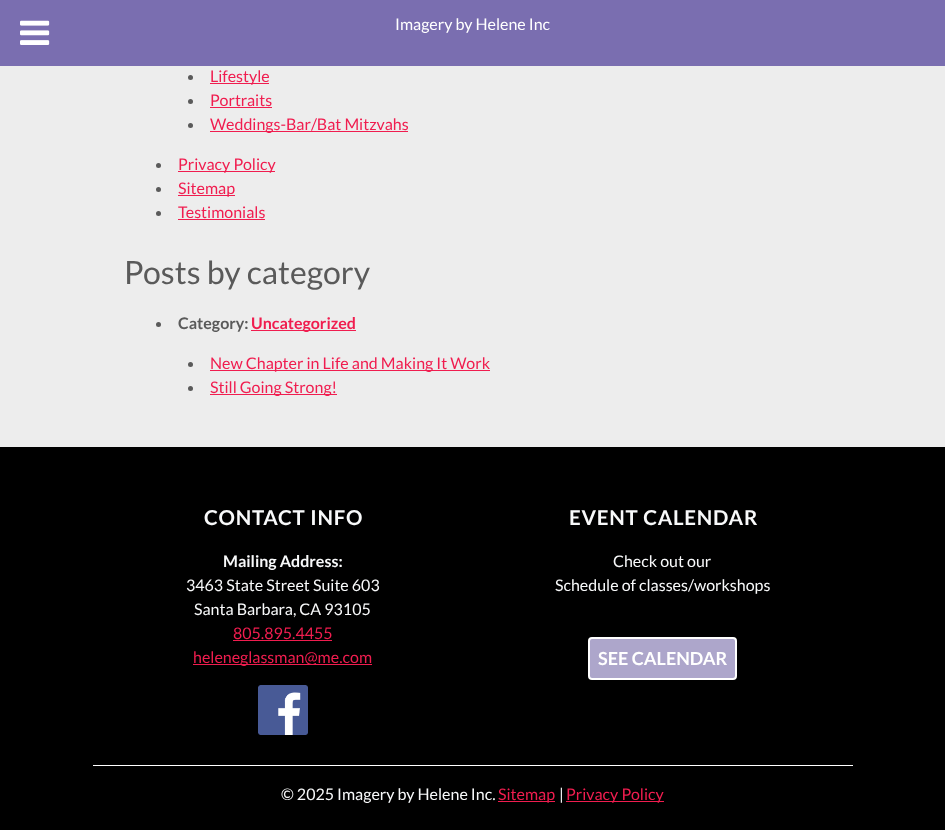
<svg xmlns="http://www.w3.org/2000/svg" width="945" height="830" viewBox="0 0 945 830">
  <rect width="100%" height="100%" fill="#ededed"/>
  <path d="M0 0h945v66H0z" fill="#7a6eb0"/>
  <image x="20" y="20" width="30" height="25" href="img/1.png"/>
  <circle cx="190.5" cy="77.5" r="2.5" fill="#5a5a5a"/>
  <path d="M210 83h59v1H210z" fill="#f01d4f"/>
  <circle cx="190.5" cy="101.5" r="2.5" fill="#5a5a5a"/>
  <path d="M210 107h62v1H210z" fill="#f01d4f"/>
  <circle cx="190.5" cy="125.5" r="2.5" fill="#5a5a5a"/>
  <path d="M210 131h198v1H210z" fill="#f01d4f"/>
  <circle cx="158.5" cy="165.5" r="2.5" fill="#5a5a5a"/>
  <path d="M178 171h97v1H178z" fill="#f01d4f"/>
  <circle cx="158.5" cy="189.5" r="2.5" fill="#5a5a5a"/>
  <path d="M178 195h57v1H178z" fill="#f01d4f"/>
  <circle cx="158.5" cy="213.5" r="2.5" fill="#5a5a5a"/>
  <path d="M178 219h87v1H178z" fill="#f01d4f"/>
  <circle cx="158.5" cy="324.5" r="2.5" fill="#5a5a5a"/>
  <path d="M251 330h105v1H251z" fill="#f01d4f"/>
  <circle cx="190.5" cy="364.5" r="2.5" fill="#5a5a5a"/>
  <path d="M210 370h280v1H210z" fill="#f01d4f"/>
  <circle cx="190.5" cy="388.5" r="2.5" fill="#5a5a5a"/>
  <path d="M210 394h127v1H210z" fill="#f01d4f"/>
  <path d="M0 447h945v383H0z" fill="#000"/>
  <path d="M233 640h99v1H233z" fill="#f01d4f"/>
  <path d="M193 664h179v1H193z" fill="#f01d4f"/>
  <image x="258" y="685" width="50" height="50" href="img/2.png"/>
  <rect x="589" y="638" width="147" height="41" rx="3" fill="#ada6cb" stroke="#fff" stroke-width="2"/>
  <path d="M93 765h760v1H93z" fill="#fff"/>
  <path d="M498 801h57v1H498z" fill="#f01d4f"/>
  <path d="M566 801h98v1H566z" fill="#f01d4f"/>
  <text x="395" y="30" font-family="Lato" font-size="16" fill="#fff">Imagery by Helene Inc</text>
  <g font-family="Lato" font-size="16" fill="#f01d4f">
    <text x="210" y="82">Lifestyle</text>
    <text x="210" y="106">Portraits</text>
    <text x="210" y="130">Weddings-Bar/Bat Mitzvahs</text>
    <text x="178" y="170">Privacy Policy</text>
    <text x="178" y="194">Sitemap</text>
    <text x="178" y="218">Testimonials</text>
  </g>
  <text x="124" y="284" font-family="Lato" font-size="32" fill="#5a5a5a">Posts by category</text>
  <text x="178" y="329" font-family="Lato" font-size="16" font-weight="bold" fill="#5a5a5a">Category:</text>
  <text x="251" y="329" font-family="Lato" font-size="16" font-weight="bold" fill="#f01d4f">Uncategorized</text>
  <g font-family="Lato" font-size="16" fill="#f01d4f">
    <text x="210" y="369">New Chapter in Life and Making It Work</text>
    <text x="210" y="393">Still Going Strong!</text>
  </g>
  <text x="204" y="525" font-family="Lato" font-size="20.5" font-weight="bold" letter-spacing="0.75" fill="#f8f9fa">CONTACT INFO</text>
  <text x="223" y="567" font-family="Lato" font-size="16" font-weight="bold" fill="#f8f9fa">Mailing Address:</text>
  <g font-family="Lato" font-size="16" fill="#f8f9fa">
    <text x="186" y="591">3463 State Street Suite 603</text>
    <text x="194" y="615">Santa Barbara, CA 93105</text>
  </g>
  <g font-family="Lato" font-size="16" fill="#f01d4f">
    <text x="233" y="639">805.895.4455</text>
    <text x="193" y="663">heleneglassman@me.com</text>
  </g>
  <text x="569" y="525" font-family="Lato" font-size="20.5" font-weight="bold" letter-spacing="0.75" fill="#f8f9fa">EVENT CALENDAR</text>
  <g font-family="Lato" font-size="16" fill="#f8f9fa">
    <text x="613" y="567">Check out our</text>
    <text x="555" y="591">Schedule of classes/workshops</text>
  </g>
  <text x="598" y="665" font-family="Lato" font-size="18" font-weight="bold" fill="#fff">SEE CALENDAR</text>
  <text x="281" y="800" font-family="Lato" font-size="16" fill="#f8f9fa">© 2025 Imagery by Helene Inc.</text>
  <text x="498" y="800" font-family="Lato" font-size="16" fill="#f01d4f">Sitemap</text>
  <text x="559" y="800" font-family="Lato" font-size="16" fill="#f8f9fa">|</text>
  <text x="566" y="800" font-family="Lato" font-size="16" fill="#f01d4f">Privacy Policy</text>
</svg>
